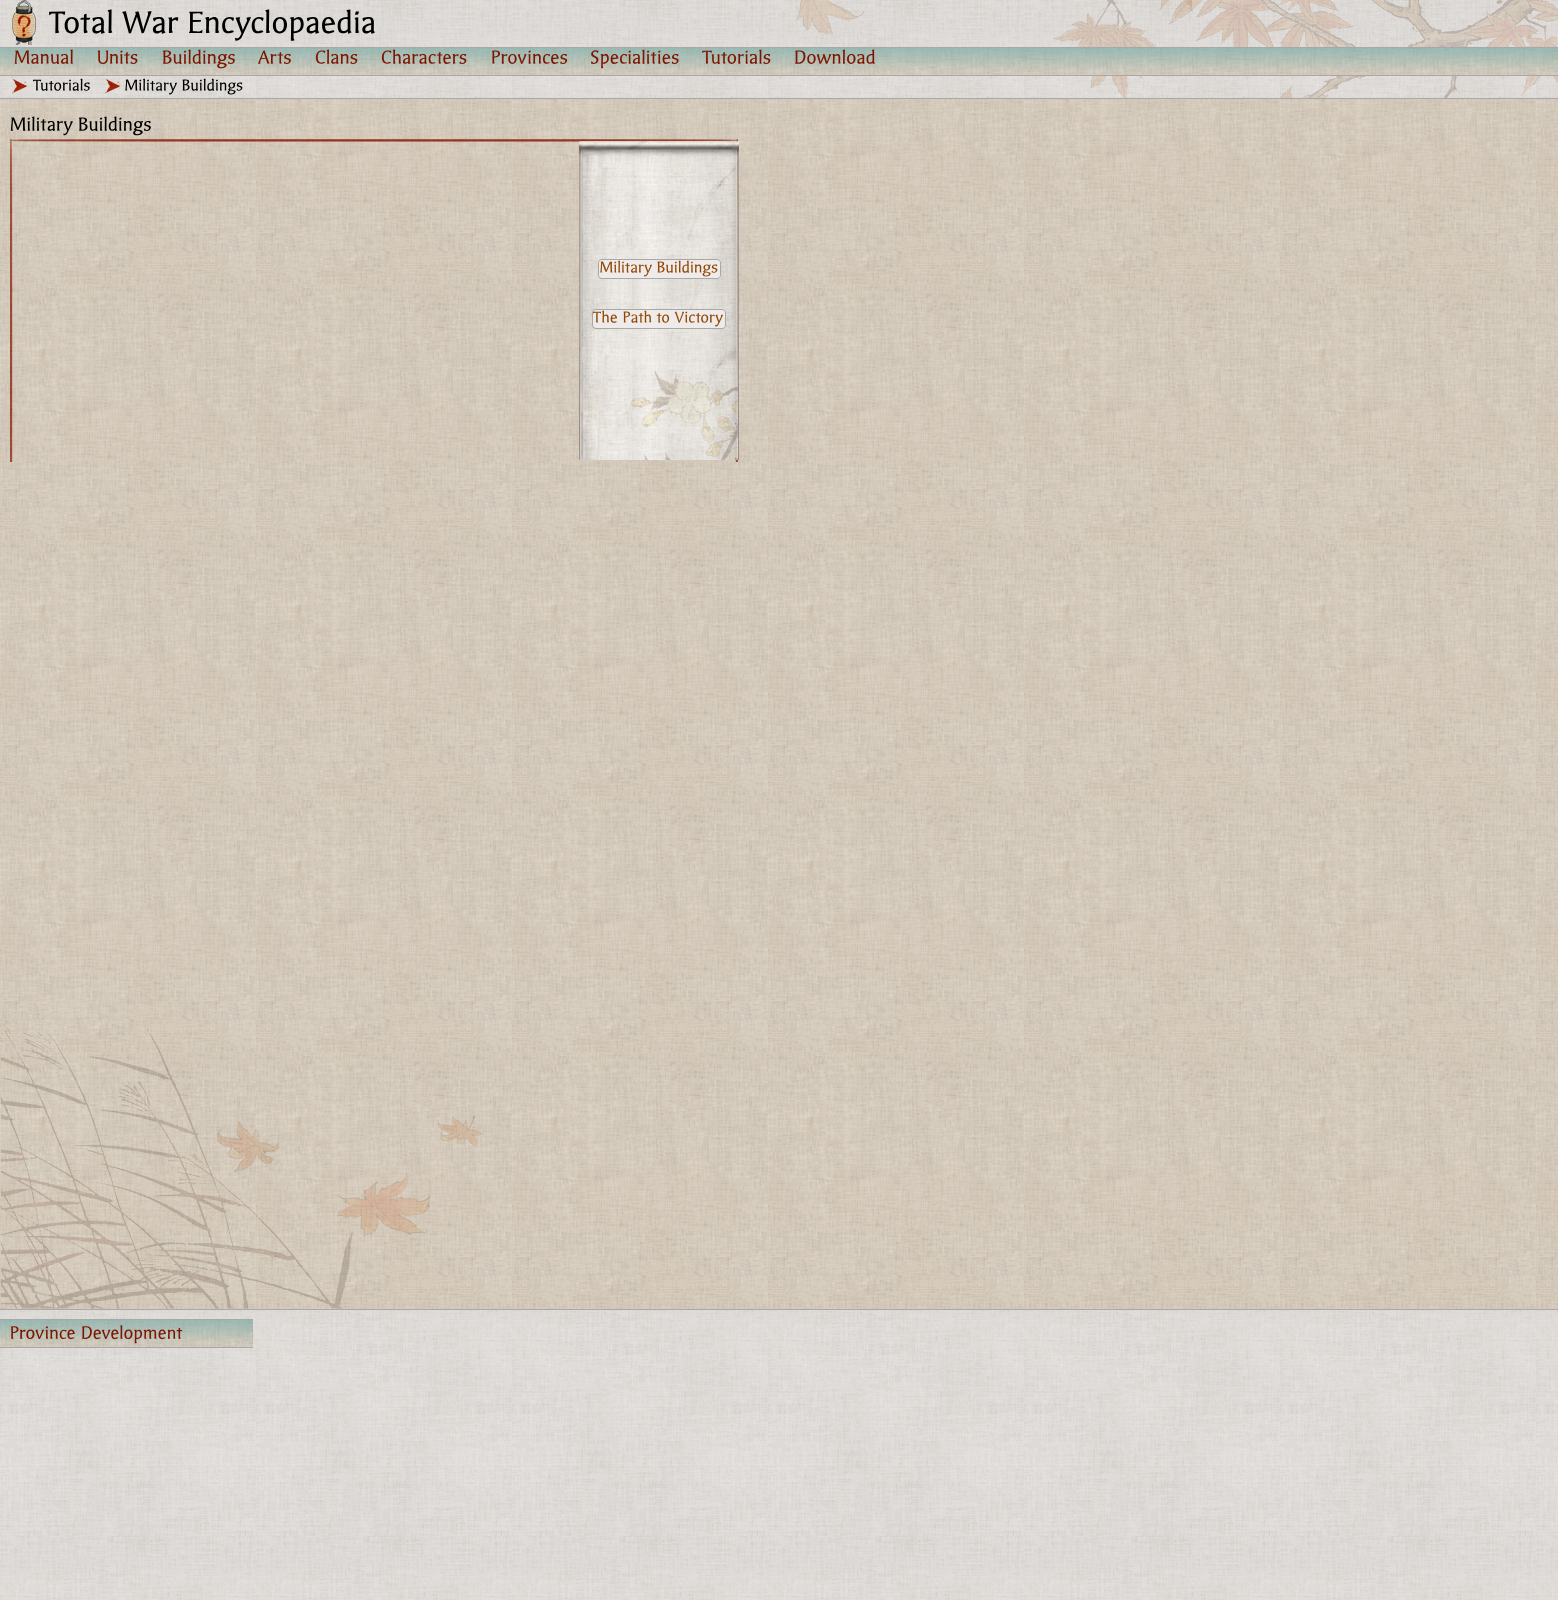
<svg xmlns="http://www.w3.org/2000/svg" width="1558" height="1600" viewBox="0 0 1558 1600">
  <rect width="100%" height="100%" fill="#fff"/>
  <image x="0" y="0" width="1558" height="1600" href="img/1.png"/>
  <image x="12" y="0" width="24" height="45" href="img/2.png"/>
  <image x="49" y="9" width="64" height="25" href="img/3.png"/>
  <image x="122" y="11" width="57" height="23" href="img/4.png"/>
  <image x="189" y="9" width="186" height="32" href="img/5.png"/>
  <image x="0" y="47" width="1558" height="29" href="img/6.png"/>
  <image x="14" y="49" width="59" height="15" href="img/7.png"/>
  <image x="97" y="50" width="41" height="14" href="img/8.png"/>
  <image x="162" y="49" width="73" height="20" href="img/9.png"/>
  <image x="258" y="50" width="33" height="14" href="img/10.png"/>
  <image x="315" y="49" width="43" height="15" href="img/11.png"/>
  <image x="381" y="49" width="86" height="15" href="img/12.png"/>
  <image x="492" y="50" width="76" height="14" href="img/13.png"/>
  <image x="591" y="49" width="88" height="20" href="img/14.png"/>
  <image x="702" y="49" width="69" height="15" href="img/15.png"/>
  <image x="795" y="49" width="80" height="15" href="img/16.png"/>
  <image x="12" y="78" width="17" height="16" href="img/17.png"/>
  <image x="33" y="78" width="57" height="13" href="img/18.png"/>
  <image x="105" y="78" width="17" height="16" href="img/19.png"/>
  <image x="125" y="78" width="53" height="17" href="img/20.png"/>
  <image x="182" y="78" width="61" height="17" href="img/21.png"/>
  <image x="0" y="99" width="1558" height="1210" href="img/22.png"/>
  <path d="M0 98h1558v1H0z" fill="#a8a8a8"/>
  <path d="M0 1309h1558v1H0z" fill="#a8a8a8"/>
  <image x="10" y="116" width="63" height="20" href="img/23.png"/>
  <image x="78" y="116" width="73" height="20" href="img/24.png"/>
  <image x="10" y="139" width="728" height="323" href="img/25.png"/>
  <image x="579" y="141" width="160" height="319" href="img/26.png"/>
  <path d="M602 259H657V279H602C600 279 598 277 598 275V263C598 261 600 259 602 259Z" fill="#f0ebeb"/>
  <path d="M602 259H657V279H601C597 278 598 272 598 269C598 266 597 259 602 259ZM602 260H657V278H602C600 278 599 277 599 275V263C599 261 600 260 602 260Z" fill="#a8a8a8" fill-rule="evenodd"/>
  <path d="M657 259H717C719 259 721 261 721 263V275C721 277 719 279 717 279H657Z" fill="#f0ebeb"/>
  <path d="M657 259H717C719 259 721 261 721 263V275C721 277 719 279 717 279H657ZM657 260H717C719 260 720 261 720 263V275C720 277 719 278 717 278H657Z" fill="#a8a8a8" fill-rule="evenodd"/>
  <image x="600" y="260" width="53" height="17" href="img/27.png"/>
  <image x="657" y="260" width="61" height="17" href="img/28.png"/>
  <path d="M596 309H623V329H596C594 329 592 327 592 325V313C592 311 594 309 596 309Z" fill="#f0ebeb"/>
  <path d="M596 309H623V329H596C594 329 592 327 592 325V313C592 311 594 309 596 309ZM596 310H623V328H596C594.5 328 593 326.5 593 325V313C593 311.5 594.5 310 596 310Z" fill="#a8a8a8" fill-rule="evenodd"/>
  <path d="M623 310h52v18H623z" fill="#f0ebeb"/>
  <path d="M623 309h52v1H623z" fill="#a8a8a8"/>
  <path d="M623 328h52v1H623z" fill="#a8a8a8"/>
  <path d="M675 309H722C724 309 726 311 726 313V325C726 327 724 329 722 329H675Z" fill="#f0ebeb"/>
  <path d="M675 309H722C724 309 726 311 726 313V325C726 327 724 329 722 329H675ZM675 310H722C724 310 725 311 725 313V325C725 327 724 328 722 328H675Z" fill="#a8a8a8" fill-rule="evenodd"/>
  <image x="593" y="310" width="25" height="13" href="img/29.png"/>
  <image x="623" y="310" width="29" height="13" href="img/30.png"/>
  <image x="656" y="313" width="14" height="10" href="img/31.png"/>
  <image x="674" y="311" width="49" height="16" href="img/32.png"/>
  <image x="0" y="1319" width="253" height="29" href="img/33.png"/>
  <image x="10" y="1326" width="65" height="14" href="img/34.png"/>
  <image x="81" y="1325" width="102" height="19" href="img/35.png"/>
</svg>
